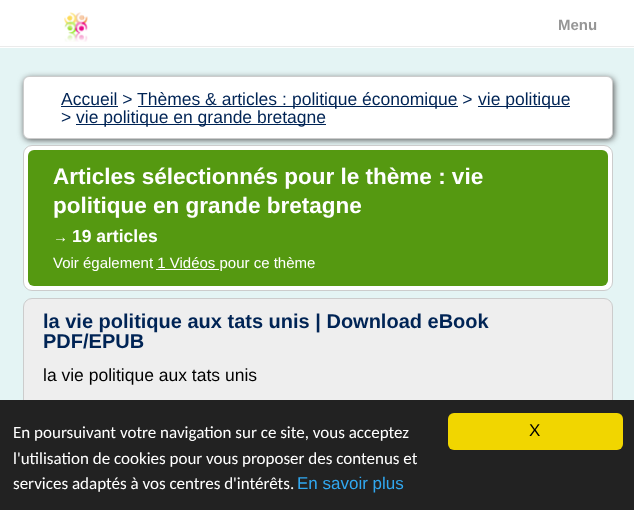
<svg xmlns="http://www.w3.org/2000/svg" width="634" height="510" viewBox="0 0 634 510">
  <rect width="100%" height="100%" fill="#e4f4f4"/>
  <path d="M0 0h634v48H0z" fill="#fff"/>
  <path d="M0 46h634v1H0z" fill="#ebebeb"/>
  <image x="64" y="12" width="24" height="30" href="img/1.png"/>
  <rect x="24" y="78" width="590" height="62" rx="6" fill="#555" filter="blur(3px)"/>
  <rect x="23.5" y="76.5" width="589" height="62" rx="5.5" fill="#fff" stroke="#ccc"/>
  <path d="M61 106h57v1H61z" fill="#002455"/>
  <path d="M138 106h320v1H138z" fill="#002455"/>
  <path d="M478 106h92v1H478z" fill="#002455"/>
  <path d="M76 124h250v1H76z" fill="#002455"/>
  <rect x="23.5" y="145.5" width="589" height="145" rx="8.5" fill="#fff" stroke="#ccc"/>
  <rect x="28" y="150" width="580" height="136" rx="6" fill="#591"/>
  <path d="M156 269h63v1H156z" fill="#fff"/>
  <rect x="23.5" y="298.5" width="589" height="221" rx="8.5" fill="#eee" stroke="#ccc"/>
  <path d="M0 400h634v110H0z" fill="#222"/>
  <rect x="448" y="413" width="175" height="37" rx="6" fill="#f1d600"/>
  <text x="558" y="30" font-family="Liberation Sans" font-size="15" font-weight="bold" fill="#969696">Menu</text>
  <g font-family="Liberation Sans" font-size="17.5" fill="#002455">
    <text x="61" y="105">Accueil &gt; Thèmes &amp; articles :</text>
    <text x="292" y="105">politique économique &gt;</text>
    <text x="478" y="105">vie politique</text>
    <text x="61" y="123">&gt;</text>
    <text x="76" y="123">vie politique en grande bretagne</text>
  </g>
  <g font-family="Liberation Sans" font-size="22.5" font-weight="bold" fill="#fff">
    <text x="53" y="184">Articles sélectionnés pour le thème : vie</text>
    <text x="53" y="213">politique en grande bretagne</text>
  </g>
  <text x="53" y="242" font-family="Liberation Sans" font-size="15" fill="#fff">→</text>
  <text x="72" y="242" font-family="Liberation Sans" font-size="17.5" font-weight="bold" fill="#fff">19 articles</text>
  <text x="53" y="268" font-family="Liberation Sans" font-size="15" fill="#fff">Voir également 1 Vidéos pour ce thème</text>
  <g font-family="Liberation Sans" font-size="20" font-weight="bold" fill="#002455">
    <text x="43" y="328">la vie politique aux tats unis | Download eBook</text>
    <text x="43" y="348">PDF/EPUB</text>
  </g>
  <text x="43" y="381" font-family="Liberation Sans" font-size="17.5" fill="#000">la vie politique aux tats unis</text>
  <g font-family="Carlito" font-size="17" fill="#fff">
    <text x="13" y="438">En poursuivant votre navigation sur ce site, vous acceptez</text>
    <text x="13" y="464">l'utilisation de cookies pour vous proposer des contenus et</text>
    <text x="13" y="489">services adaptés à vos centres d'intérêts.</text>
  </g>
  <text x="297" y="489" font-family="Liberation Sans" font-size="17" fill="#31a8f0">En savoir plus</text>
  <text x="529" y="436" font-family="Liberation Sans" font-size="17" fill="#000">X</text>
</svg>
